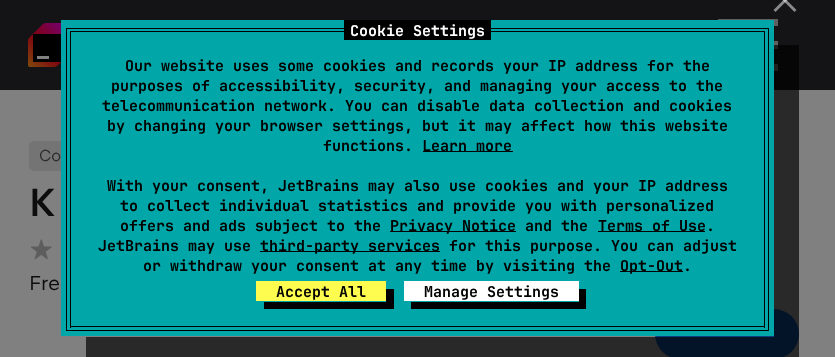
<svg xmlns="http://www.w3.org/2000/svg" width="835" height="357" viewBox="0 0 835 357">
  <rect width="100%" height="100%" fill="#808080"/>
  <path d="M0 0h835v90H0z" fill="#141416"/>
  <image x="28" y="23" width="33" height="44" href="img/1.png"/>
  <path d="M778 19H718V26H778ZM778 41H718V49H778ZM718 64H778V71H718Z" fill="#5f6060"/>
  <rect x="29" y="141" width="106" height="30" rx="5" fill="#747474"/>
  <image x="31" y="239" width="21" height="21" href="img/2.png"/>
  <rect x="655" y="309" width="144" height="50" rx="25" fill="#0b3f80"/>
  <path d="M86 337V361H799V45H774V337Z" fill="#000000ad"/>
  <path d="M61 20h713v316H61z" fill="#01a7a8"/>
  <path d="M773.5 10L794.5-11L796.5-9L775.5 12Z" fill="#898a8b"/>
  <path d="M775.5-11L796.5 10L794.5 12L773.5-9Z" fill="#ffffff80"/>
  <path d="M70 31h695v1H70z" fill="#000"/>
  <path d="M764 31h1v297H764z" fill="#000"/>
  <path d="M70 31h1v250H70z" fill="#000"/>
  <path d="M66 28h703v1H66z" fill="#000"/>
  <path d="M344 20h147v20H344z" fill="#000"/>
  <path d="M768 28h1v303H768z" fill="#000"/>
  <path d="M66 28h1v252H66z" fill="#000"/>
  <path d="M423 151h90v1H423z" fill="#000"/>
  <path d="M390 231h126v1H390z" fill="#000"/>
  <path d="M598 231h107v1H598z" fill="#000"/>
  <path d="M260 251h180v1H260z" fill="#000"/>
  <path d="M620 271h63v1H620z" fill="#000"/>
  <path d="M70 326h695v1H70z" fill="#000"/>
  <path d="M70 281h1v47H70z" fill="#000"/>
  <path d="M66 330h703v1H66z" fill="#000"/>
  <path d="M66 280h1v51H66z" fill="#000"/>
  <path d="M264 302V309H394V289H386V302Z" fill="#000"/>
  <path d="M256 281h130v20H256z" fill="#fefc4f"/>
  <path d="M411 302V309H586V289H579V302Z" fill="#000"/>
  <path d="M404 281h175v20H404z" fill="#fff"/>
  <text x="39" y="161" font-family="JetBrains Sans" font-size="16" fill="#2c2c2d">Co</text>
  <text x="29" y="216" font-family="JetBrains Sans" font-size="39" font-weight="500" fill="#0d0d0e">K</text>
  <text x="29" y="290" font-family="JetBrains Sans" font-size="20" fill="#0d0d0e">Fre</text>
  <text x="350" y="36" font-family="JetBrains Mono" font-size="15" font-weight="bold" fill="#fff">Cookie Settings</text>
  <g font-family="JetBrains Mono" font-size="15" font-weight="bold" fill="#000">
    <text x="125" y="71">Our website uses some cookies and records your IP address for the</text>
    <text x="111" y="91">purposes of accessibility, security, and managing your access to the</text>
    <text x="102" y="111">telecommunication network. You can disable data collection and cookies</text>
    <text x="107" y="131">by changing your browser settings, but it may affect how this website</text>
    <text x="323" y="151">functions.</text>
    <text x="422" y="151">Learn more</text>
    <text x="107" y="191">With your consent, JetBrains may also use cookies and your IP address</text>
    <text x="120" y="211">to collect individual statistics and provide you with personalized</text>
    <text x="120" y="231">offers and ads subject to the</text>
    <text x="390" y="231">Privacy Notice and the</text>
    <text x="598" y="231">Terms of Use.</text>
    <text x="98" y="251">JetBrains may use</text>
    <text x="260" y="251">third-party services for this purpose. You can adjust</text>
    <text x="143" y="271">or withdraw your consent at any time by visiting the</text>
    <text x="620" y="271">Opt-Out.</text>
    <text x="276" y="297">Accept All</text>
    <text x="424" y="297">Manage Settings</text>
  </g>
</svg>
